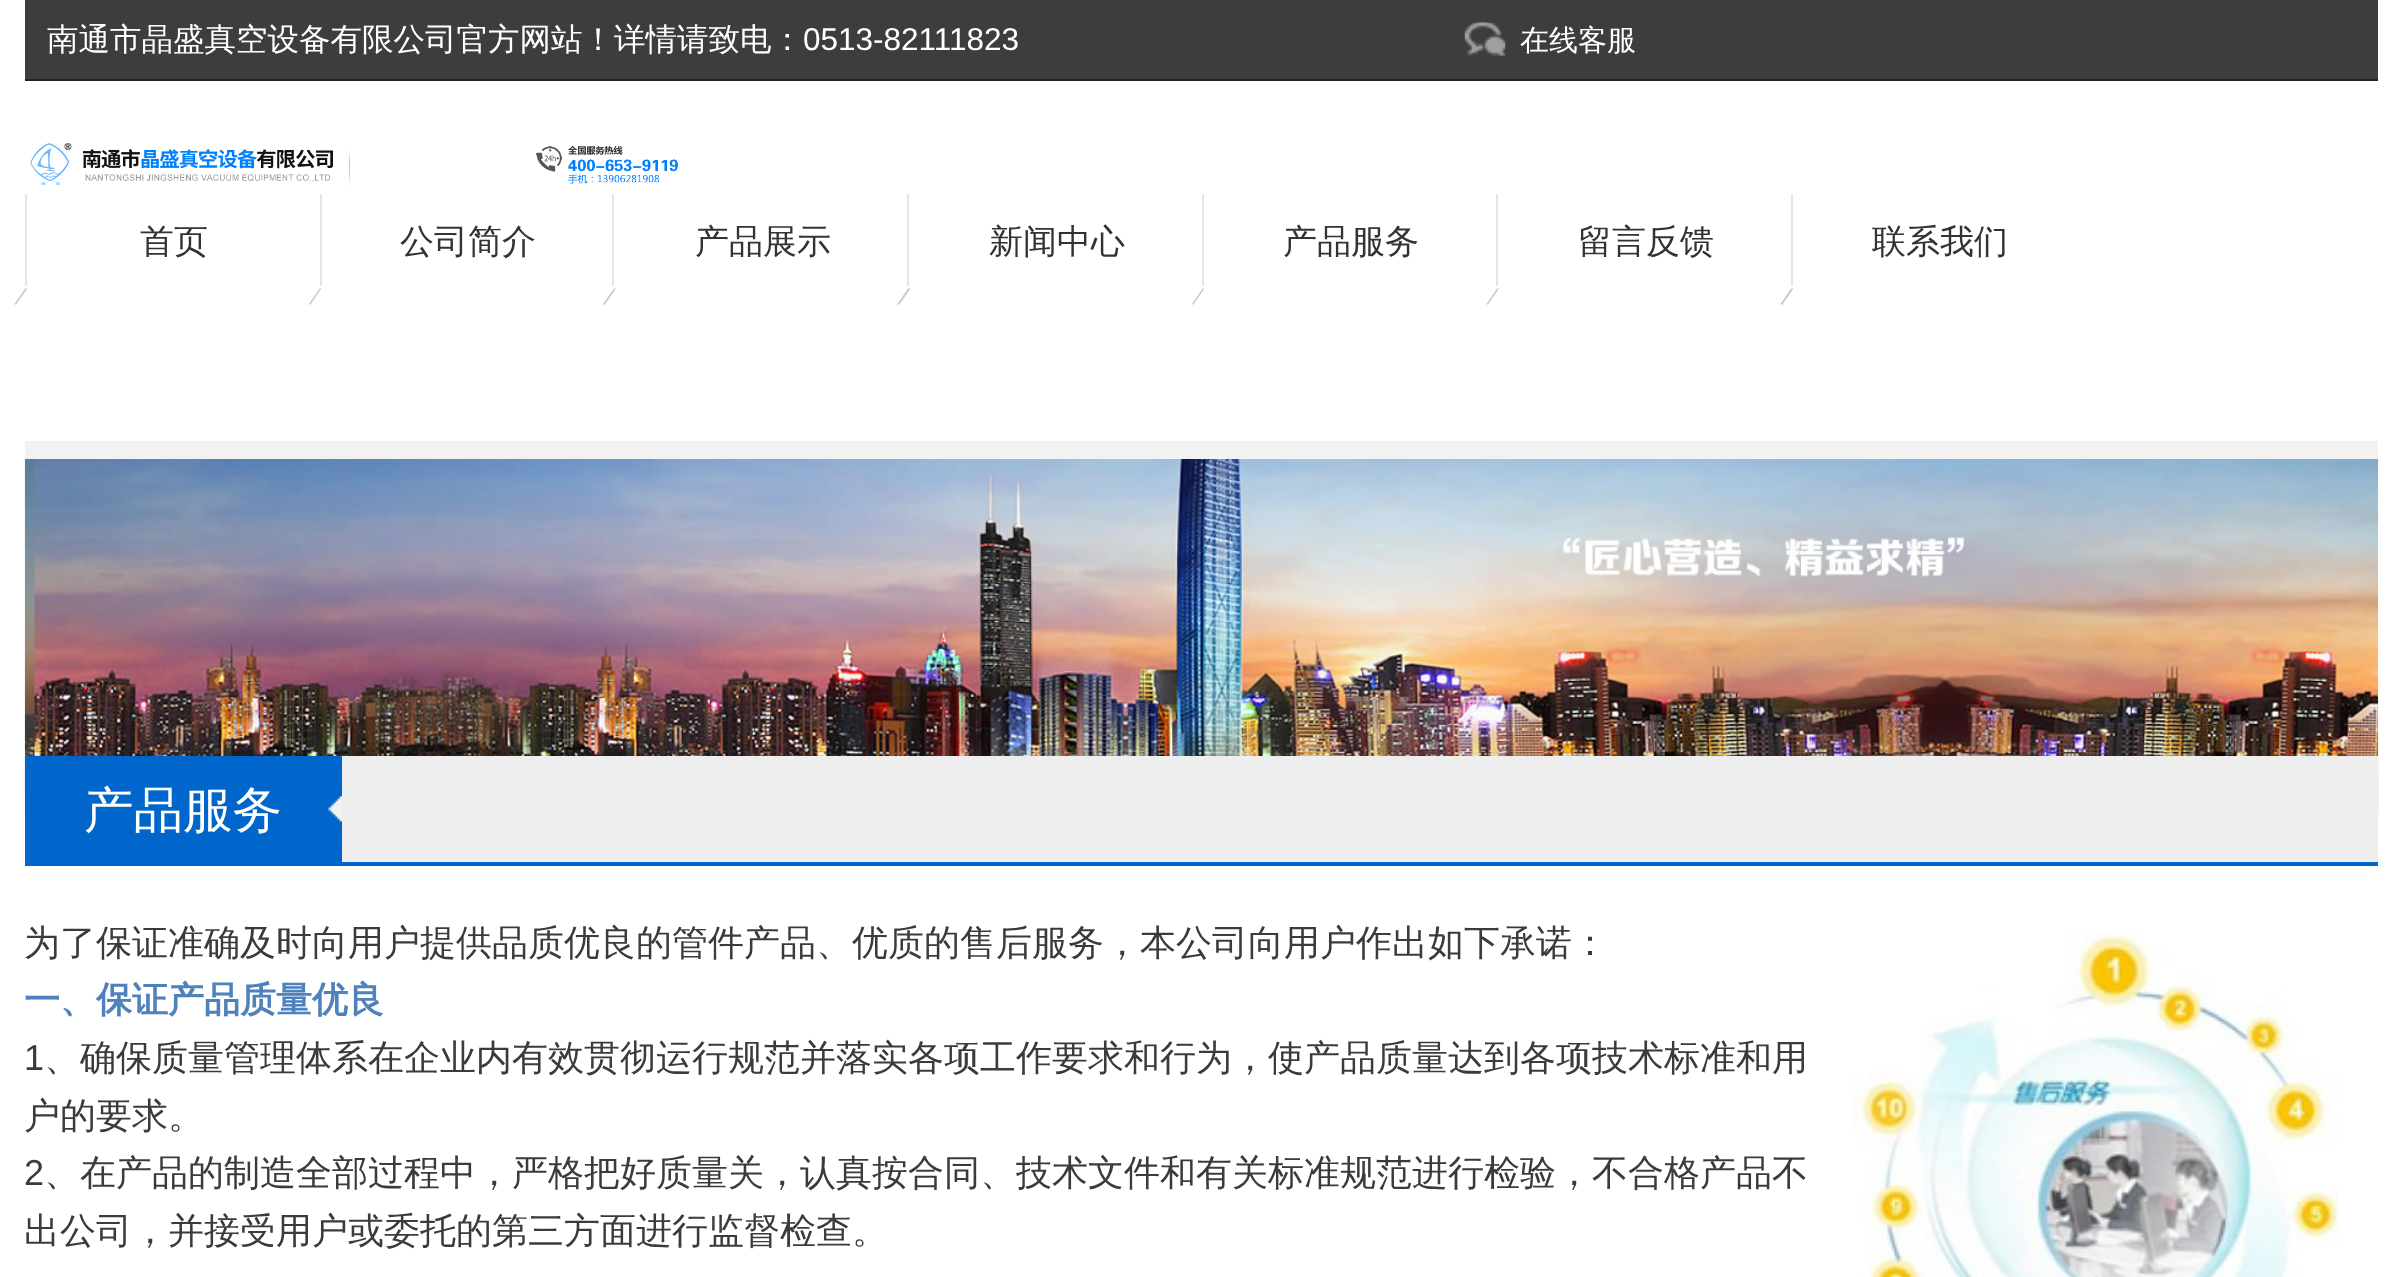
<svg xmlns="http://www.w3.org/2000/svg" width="2402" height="1277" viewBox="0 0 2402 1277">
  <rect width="100%" height="100%" fill="#fff"/>
  <path d="M25 0h2353v79H25z" fill="#3d3d3d"/>
  <path d="M25 79h2353v2H25z" fill="#222"/>
  <image x="1464" y="22" width="42" height="35" href="img/1.png"/>
  <path d="M25 441h2353v18H25z" fill="#f2f2f2"/>
  <image x="30" y="143" width="648" height="43" href="img/2.png"/>
  <path d="M25 194h2v92H25z" fill="#e5e5e5"/>
  <path d="M25 288.5H27.5L16 304.5H14Z" fill="#ccc"/>
  <path d="M320 194h2v92H320z" fill="#e5e5e5"/>
  <path d="M319.5 288.5H321.5L310.5 304.5H308.5Z" fill="#ccc"/>
  <path d="M612 194h2v92H612z" fill="#e5e5e5"/>
  <path d="M614 288.5H616L605 304.5H602.5Z" fill="#ccc"/>
  <path d="M907 194h2v92H907z" fill="#e5e5e5"/>
  <path d="M908 288.5H910.5L899.5 304.5H897Z" fill="#ccc"/>
  <path d="M1202 194h2v92H1202z" fill="#e5e5e5"/>
  <path d="M1202.5 288.5H1204.5L1193.5 304.5H1191.5Z" fill="#ccc"/>
  <path d="M1496 194h2v92H1496z" fill="#e5e5e5"/>
  <path d="M1497 288.5H1499L1488 304.5H1486Z" fill="#ccc"/>
  <path d="M1791 194h2v92H1791z" fill="#e5e5e5"/>
  <path d="M1791 288.5H1793.5L1782.5 304.5H1780Z" fill="#ccc"/>
  <image x="24" y="459" width="2355" height="355" href="img/3.png"/>
  <path d="M342 756h2036v106H342z" fill="#eee"/>
  <path d="M25 862h2353v4H25z" fill="#06c"/>
  <path d="M25 756h317v106H25z" fill="#06c"/>
  <image x="328" y="796" width="14" height="26" href="img/4.png"/>
  <image x="1852" y="931" width="487" height="346" href="img/5.png"/>
  <text x="47" y="50" font-family="WenQuanYi Zen Hei" font-size="31.5" font-weight="500" fill="#fff">南通市晶盛真空设备有限公司官方网站！详情请致电：</text>
  <text x="803" y="50" font-family="Liberation Sans" font-size="31.5" fill="#fff">0513-82111823</text>
  <text x="1520" y="50" font-family="WenQuanYi Zen Hei" font-size="29" font-weight="500" fill="#fff">在线客服</text>
  <g font-family="WenQuanYi Zen Hei" font-size="34" font-weight="500" fill="#333">
    <text x="140" y="253">首页</text>
    <text x="400" y="253">公司简介</text>
    <text x="695" y="253">产品展示</text>
    <text x="989" y="253">新闻中心</text>
    <text x="1283" y="253">产品服务</text>
    <text x="1578" y="253">留言反馈</text>
    <text x="1872" y="253">联系我们</text>
  </g>
  <text x="84" y="827" font-family="WenQuanYi Zen Hei" font-size="49.5" font-weight="500" fill="#fff">产品服务</text>
  <text x="24" y="955" font-family="WenQuanYi Zen Hei" font-size="36" font-weight="500" fill="#3b3b3b">为了保证准确及时向用户提供品质优良的管件产品、优质的售后服务，本公司向用户作出如下承诺：</text>
  <text x="24" y="1012" font-family="WenQuanYi Zen Hei" font-size="36" font-weight="bold" fill="#4f81bd">一、保证产品质量优良</text>
  <text x="24" y="1070" font-family="Liberation Sans" font-size="36" fill="#3b3b3b">1</text>
  <g font-family="WenQuanYi Zen Hei" font-size="36" font-weight="500" fill="#3b3b3b">
    <text x="44" y="1070">、确保质量管理体系在企业内有效贯彻运行规范并落实各项工作要求和行为，使产品质量达到各项技术标准和用</text>
    <text x="24" y="1128">户的要求。</text>
  </g>
  <text x="24" y="1185" font-family="Liberation Sans" font-size="36" fill="#3b3b3b">2</text>
  <g font-family="WenQuanYi Zen Hei" font-size="36" font-weight="500" fill="#3b3b3b">
    <text x="44" y="1185">、在产品的制造全部过程中，严格把好质量关，认真按合同、技术文件和有关标准规范进行检验，不合格产品不</text>
    <text x="24" y="1243">出公司，并接受用户或委托的第三方面进行监督检查。</text>
  </g>
</svg>
